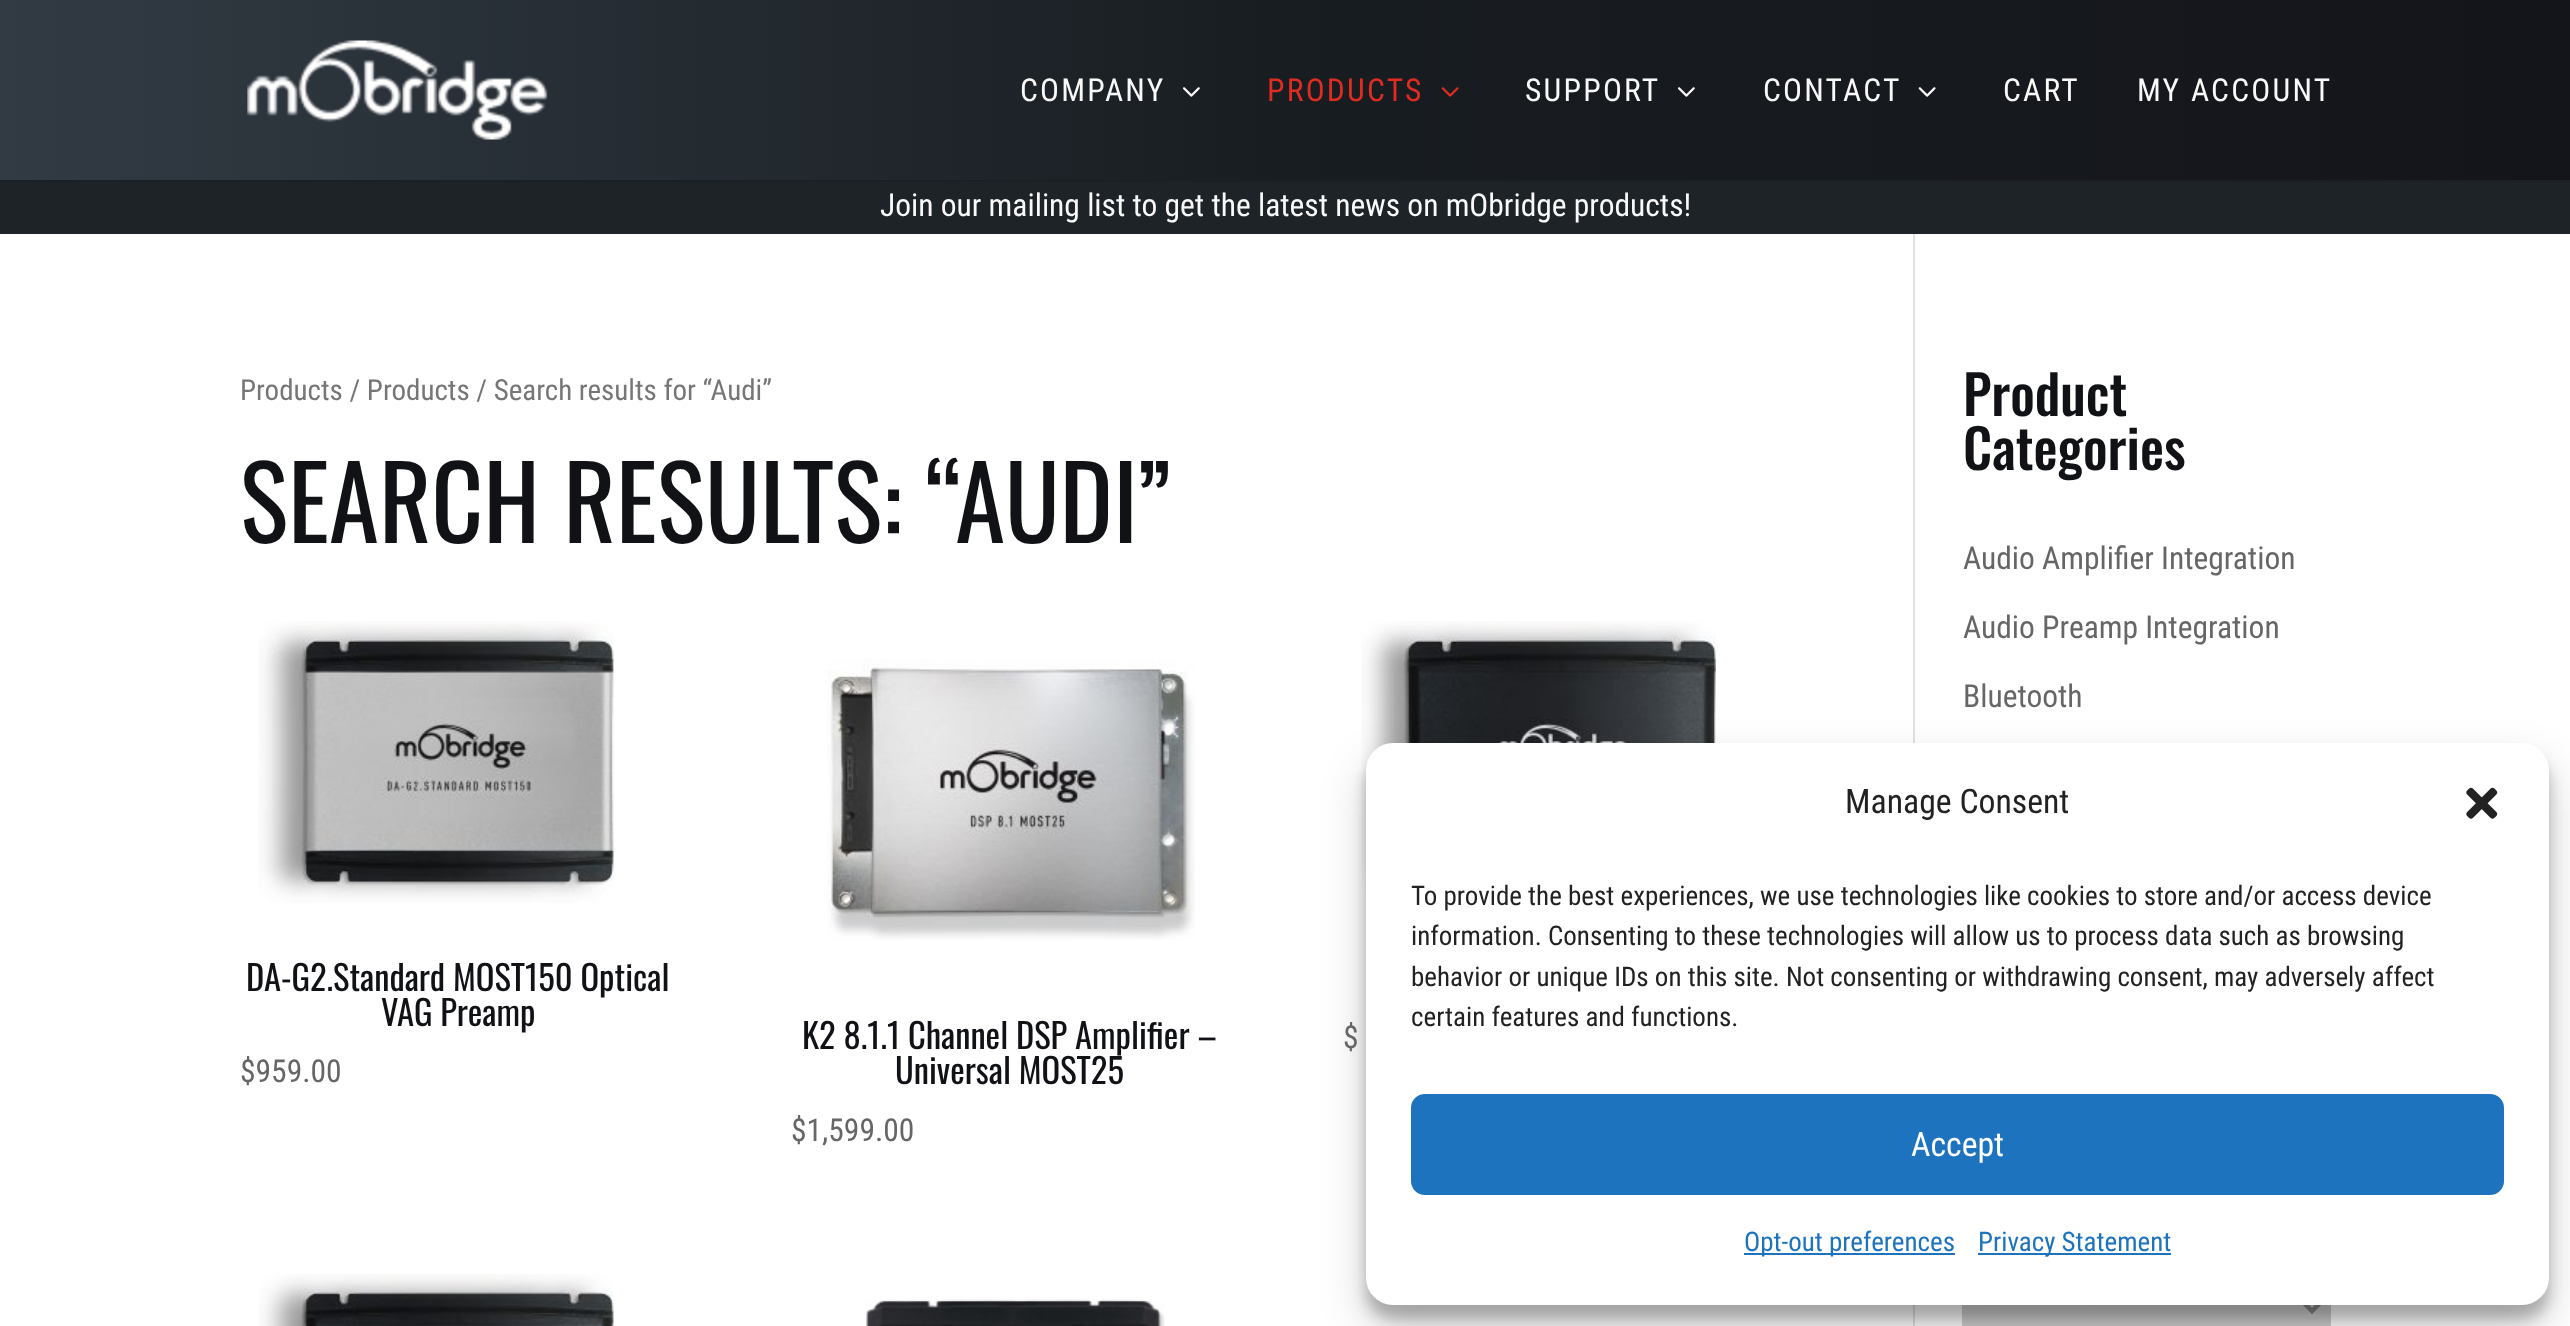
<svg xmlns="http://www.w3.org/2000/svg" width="2570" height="1326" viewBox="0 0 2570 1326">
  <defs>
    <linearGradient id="g1" gradientUnits="userSpaceOnUse" x1="0" y1="90" x2="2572" y2="90"><stop offset="0" stop-color="#323b44"/><stop offset="0.5" stop-color="#181d21"/><stop offset="1" stop-color="#14151a"/></linearGradient>
  </defs>
  <rect width="100%" height="100%" fill="#1d2327"/>
  <path d="M0 180V182H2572V2V180Z" fill="#1a2023"/>
  <path d="M0 0h2570v180H0z" fill="url(#g1)"/>
  <image x="247" y="40" width="301" height="100" href="img/1.png"/>
  <image x="1183" y="87" width="17" height="10" href="img/2.png"/>
  <image x="1441" y="87" width="18" height="10" href="img/3.png"/>
  <image x="1678" y="87" width="17" height="10" href="img/4.png"/>
  <image x="1918" y="87" width="18" height="10" href="img/5.png"/>
  <path d="M0 234h2570v1092H0z" fill="#fff"/>
  <path d="M1913 234h2v1092H1913z" fill="#e2e2e2"/>
  <image x="258" y="621" width="356" height="282" href="img/6.png"/>
  <image x="827" y="659" width="368" height="281" href="img/7.png"/>
  <image x="1361" y="621" width="355" height="282" href="img/8.png"/>
  <image x="259" y="1274" width="355" height="52" href="img/9.png"/>
  <image x="866" y="1299" width="299" height="27" href="img/10.png"/>
  <path d="M1962 1305h369v21H1962z" fill="#cfcfcf"/>
  <path d="M2303 1302L2312 1311L2321 1302" fill="none" stroke="#898989" stroke-width="4.5"/>
  <rect x="1366" y="756" width="1183" height="563" rx="27" fill="#0000003b" filter="blur(7px)"/>
  <rect x="1366" y="765" width="1183" height="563" rx="27" fill="#00000030" filter="blur(22.5px)"/>
  <rect x="1366" y="743" width="1183" height="562" rx="27" fill="#fff"/>
  <image x="2466" y="787" width="32" height="32" href="img/11.png"/>
  <rect x="1412" y="1095" width="1091" height="99" rx="13" fill="#1e73be" stroke="#1e73be" stroke-width="2"/>
  <path d="M1744 1253h211v2H1744z" fill="#1e73be"/>
  <path d="M1978 1253h193v2H1978z" fill="#1e73be"/>
  <text x="1020" y="101" font-family="Roboto Condensed" font-size="31.5" letter-spacing="2.25" fill="#f9f9f9">COMPANY</text>
  <text x="1267" y="101" font-family="Roboto Condensed" font-size="31.5" letter-spacing="2.25" fill="#e02b20">PRODUCTS</text>
  <g font-family="Roboto Condensed" font-size="31.5" letter-spacing="2.25" fill="#f9f9f9">
    <text x="1525" y="101">SUPPORT</text>
    <text x="1763" y="101">CONTACT</text>
    <text x="2003" y="101">CART</text>
    <text x="2137" y="101">MY ACCOUNT</text>
  </g>
  <text x="880" y="216" font-family="Roboto Condensed" font-size="31.5" fill="#f9f9f9">Join our mailing list to get the latest news on mObridge products!</text>
  <text x="240" y="400" font-family="Roboto Condensed" font-size="29" fill="#767676">Products / Products / Search results for “Audi”</text>
  <text x="240" y="543" font-family="Oswald" font-size="101.25" fill="#101216">SEARCH RESULTS: “AUDI”</text>
  <g font-family="Oswald" font-size="34.6" fill="#101216">
    <text x="246" y="991">DA-G2.Standard MOST150 Optical</text>
    <text x="381" y="1026">VAG Preamp</text>
  </g>
  <text x="240" y="1082" font-family="Roboto Condensed" font-size="31.5" fill="#666">$959.00</text>
  <g font-family="Oswald" font-size="34.6" fill="#101216">
    <text x="802" y="1049">K2 8.1.1 Channel DSP Amplifier –</text>
    <text x="895" y="1084">Universal MOST25</text>
  </g>
  <g font-family="Roboto Condensed" font-size="31.5" fill="#666">
    <text x="791" y="1141">$1,599.00</text>
    <text x="1343" y="1048">$</text>
  </g>
  <g font-family="Oswald" font-size="54" font-weight="500" fill="#101216">
    <text x="1963" y="416">Product</text>
    <text x="1963" y="470">Categories</text>
  </g>
  <g font-family="Roboto Condensed" font-size="31.5" fill="#666">
    <text x="1963" y="569">Audio Amplifier Integration</text>
    <text x="1963" y="638">Audio Preamp Integration</text>
    <text x="1963" y="707">Bluetooth</text>
  </g>
  <g font-family="Roboto Condensed" font-size="36" fill="#898989">
    <text x="1985" y="1319">--</text>
    <text x="2083" y="1319">--</text>
  </g>
  <text x="1845" y="813" font-family="Roboto Condensed" font-size="33.75" fill="#222">Manage Consent</text>
  <g font-family="Roboto Condensed" font-size="27" fill="#222">
    <text x="1411" y="905">To provide the best experiences, we use technologies like cookies to store and/or access device</text>
    <text x="1411" y="945">information. Consenting to these technologies will allow us to process data such as browsing</text>
    <text x="1411" y="986">behavior or unique IDs on this site. Not consenting or withdrawing consent, may adversely affect</text>
    <text x="1411" y="1026">certain features and functions.</text>
  </g>
  <text x="1911" y="1156" font-family="Roboto Condensed" font-size="33.75" fill="#fff">Accept</text>
  <g font-family="Roboto Condensed" font-size="27" fill="#1e73be">
    <text x="1744" y="1251">Opt-out preferences</text>
    <text x="1978" y="1251">Privacy Statement</text>
  </g>
</svg>
